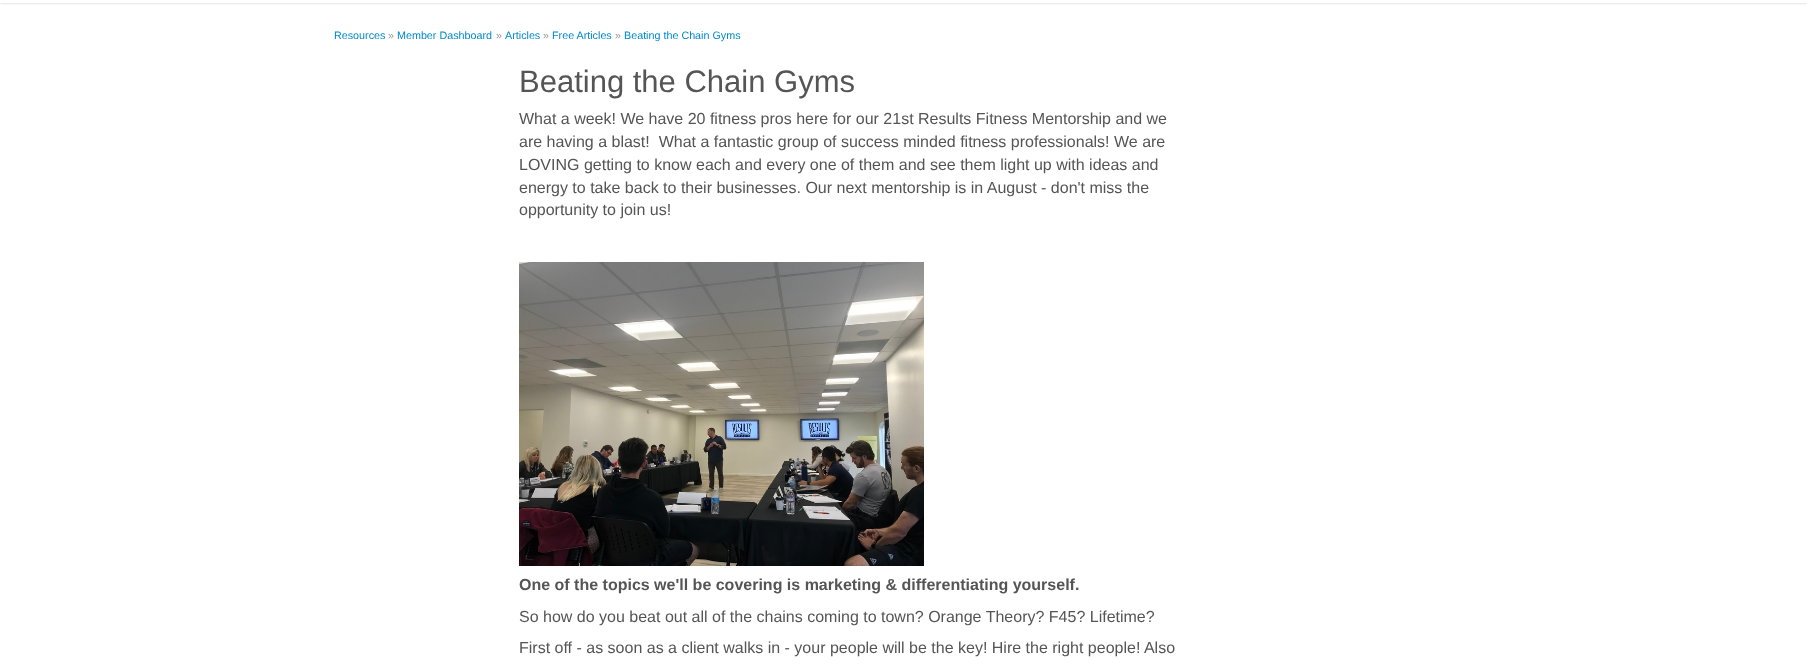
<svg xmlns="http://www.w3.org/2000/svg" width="1807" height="664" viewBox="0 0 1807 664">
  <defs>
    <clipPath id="clip1"><path d="M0 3h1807v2H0z"/></clipPath>
  </defs>
  <rect width="100%" height="100%" fill="#fff"/>
  <g clip-path="url(#clip1)">
    <path d="M0 -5h1807v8H0z" fill="#00000033" filter="blur(1.5px)"/>
  </g>
  <image x="519" y="262" width="405" height="304" href="img/1.png"/>
  <text x="334" y="39" font-family="Liberation Sans" font-size="10.75" fill="#08c">Resources</text>
  <text x="388" y="39" font-family="Liberation Sans" font-size="10.75" fill="#999">»</text>
  <text x="397" y="39" font-family="Liberation Sans" font-size="10.75" fill="#08c">Member Dashboard</text>
  <text x="496" y="39" font-family="Liberation Sans" font-size="10.75" fill="#999">»</text>
  <text x="505" y="39" font-family="Liberation Sans" font-size="10.75" fill="#08c">Articles</text>
  <text x="543" y="39" font-family="Liberation Sans" font-size="10.75" fill="#999">»</text>
  <text x="552" y="39" font-family="Liberation Sans" font-size="10.75" fill="#08c">Free Articles</text>
  <text x="615" y="39" font-family="Liberation Sans" font-size="10.75" fill="#999">»</text>
  <text x="624" y="39" font-family="Liberation Sans" font-size="10.75" fill="#08c">Beating the Chain Gyms</text>
  <text x="519" y="92" font-family="Liberation Sans" font-size="31" fill="#555">Beating the Chain Gyms</text>
  <g font-family="Liberation Sans" font-size="16" fill="#555">
    <text x="519" y="124">What a week! We have 20 fitness pros here for our 21st Results Fitness Mentorship and we</text>
    <text x="519" y="147" xml:space="preserve">are having a blast!  What a fantastic group of success minded fitness professionals! We are</text>
    <text x="519" y="170">LOVING getting to know each and every one of them and see them light up with ideas and</text>
    <text x="519" y="193">energy to take back to their businesses. Our next mentorship is in August - don't miss the</text>
    <text x="519" y="215">opportunity to join us!</text>
  </g>
  <text x="519" y="590" font-family="Liberation Sans" font-size="16" font-weight="bold" fill="#555">One of the topics we'll be covering is marketing &amp; differentiating yourself.</text>
  <g font-family="Liberation Sans" font-size="16" fill="#555">
    <text x="519" y="622">So how do you beat out all of the chains coming to town? Orange Theory? F45? Lifetime?</text>
    <text x="519" y="653">First off - as soon as a client walks in - your people will be the key! Hire the right people! Also</text>
  </g>
</svg>
